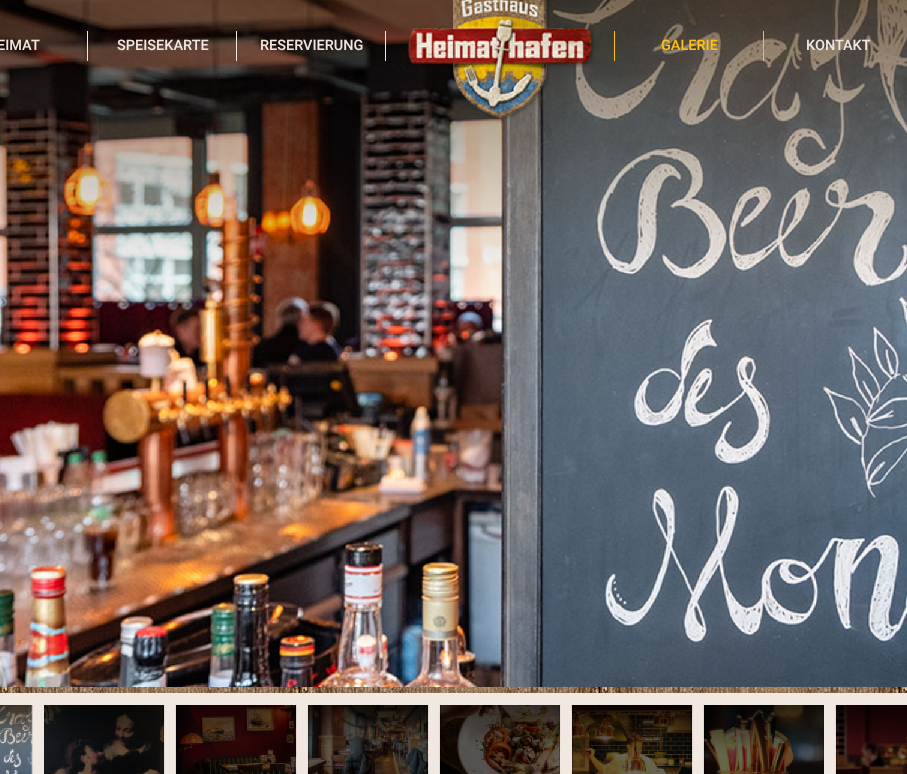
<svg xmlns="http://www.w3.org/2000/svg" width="907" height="774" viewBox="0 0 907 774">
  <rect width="100%" height="100%" fill="#fff"/>
  <image x="0" y="687" width="907" height="6" href="img/1.png"/>
  <image x="0" y="0" width="907" height="687" href="img/2.png"/>
  <path d="M0 693h907v81H0z" fill="#f1e9e1"/>
  <image x="0" y="705" width="33" height="69" href="img/3.png"/>
  <path d="M44 705h120v69H44z" fill="#000"/>
  <image x="44" y="705" width="121" height="69" href="img/4.png"/>
  <path d="M176 705h120v69H176z" fill="#000"/>
  <image x="175" y="705" width="122" height="69" href="img/5.png"/>
  <path d="M308 705h120v69H308z" fill="#000"/>
  <image x="307" y="705" width="122" height="69" href="img/6.png"/>
  <path d="M440 705h120v69H440z" fill="#000"/>
  <image x="439" y="705" width="122" height="69" href="img/7.png"/>
  <path d="M572 705h120v69H572z" fill="#000"/>
  <image x="571" y="705" width="122" height="69" href="img/8.png"/>
  <path d="M704 705h120v69H704z" fill="#000"/>
  <image x="703" y="705" width="121" height="69" href="img/9.png"/>
  <path d="M836 705h71v69H836z" fill="#000"/>
  <image x="835" y="705" width="72" height="69" href="img/10.png"/>
  <path d="M87 31h1v30H87z" fill="#efe7e0"/>
  <path d="M236 31h1v30H236z" fill="#efe7e0"/>
  <path d="M385 31h1v30H385z" fill="#efe7e0"/>
  <image x="407" y="0" width="187" height="122" href="img/11.png"/>
  <path d="M763 31h1v30H763z" fill="#ffc20e"/>
  <path d="M614 31h1v30H614z" fill="#ffc20e"/>
  <g font-family="Roboto" font-size="14.5" font-weight="500" fill="#efe7e0">
    <text x="-3" y="50">EIMAT</text>
    <text x="117" y="50">SPEISEKARTE</text>
    <text x="260" y="50">RESERVIERUNG</text>
  </g>
  <text x="661" y="50" font-family="Roboto" font-size="14.5" font-weight="500" fill="#ffc20e">GALERIE</text>
  <text x="806" y="50" font-family="Roboto" font-size="14.5" font-weight="500" fill="#efe7e0">KONTAKT</text>
</svg>
